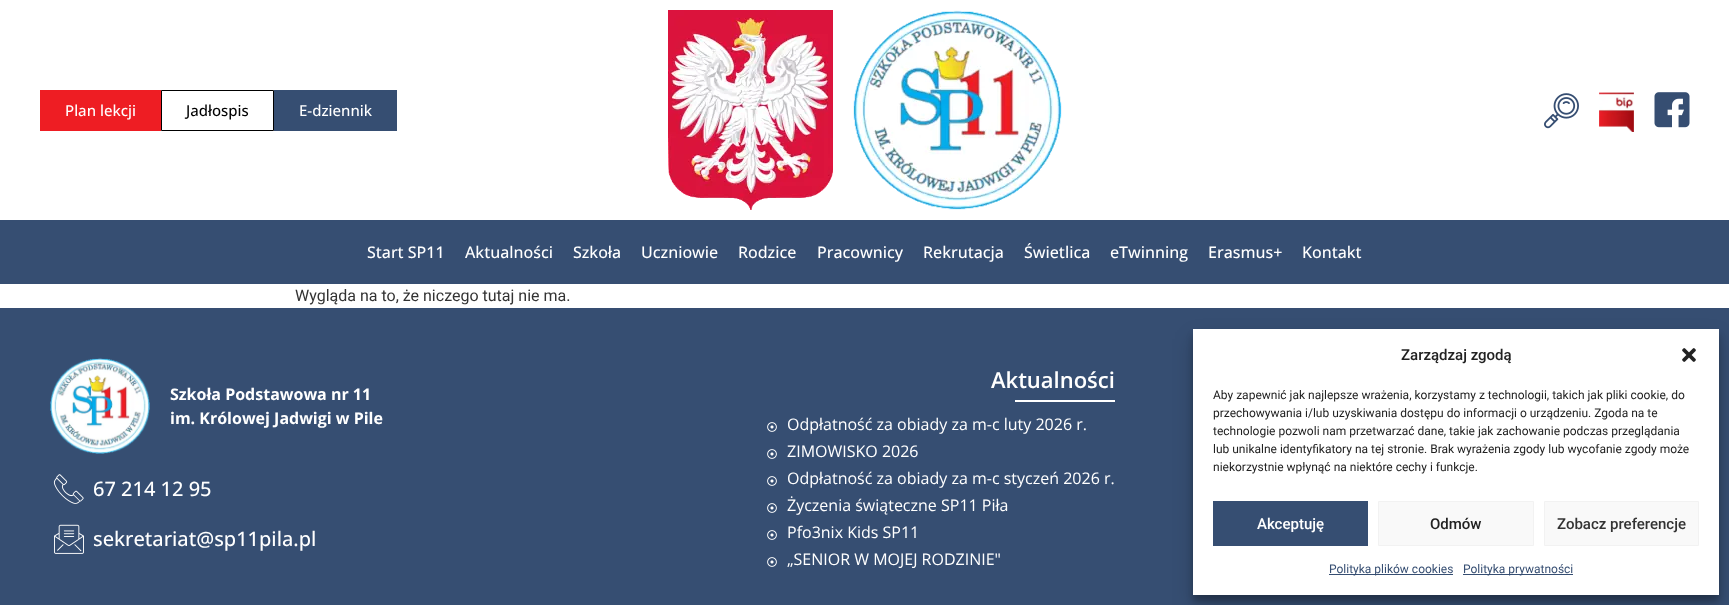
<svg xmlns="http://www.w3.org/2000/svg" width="1729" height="605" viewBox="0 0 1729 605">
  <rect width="100%" height="100%" fill="#fff"/>
  <path d="M40 90h121v41H40z" fill="#ee1d23"/>
  <path d="M161.5 90.5h112v40H161.5z" fill="none" stroke="#000"/>
  <path d="M274 90h123v41H274z" fill="#364e72"/>
  <image x="668" y="10" width="165" height="200" href="img/1.png"/>
  <image x="853" y="10" width="209" height="200" href="img/2.png"/>
  <image x="1544" y="93" width="35" height="36" href="img/3.png"/>
  <image x="1599" y="92" width="35" height="40" href="img/4.png"/>
  <image x="1654" y="92" width="36" height="36" href="img/5.png"/>
  <path d="M0 220h1729v64H0z" fill="#364e72"/>
  <path d="M0 308h1729v297H0z" fill="#364e72"/>
  <image x="50" y="358" width="100" height="96" href="img/6.png"/>
  <image x="53" y="474" width="31" height="30" href="img/7.png"/>
  <image x="54" y="524" width="30" height="30" href="img/8.png"/>
  <path d="M1015 400h100v2H1015z" fill="#fff"/>
  <image x="767" y="422" width="10" height="10" href="img/9.png"/>
  <image x="767" y="449" width="10" height="10" href="img/9.png"/>
  <image x="767" y="476" width="10" height="10" href="img/9.png"/>
  <image x="767" y="503" width="10" height="10" href="img/9.png"/>
  <image x="767" y="530" width="10" height="10" href="img/9.png"/>
  <image x="767" y="557" width="10" height="10" href="img/9.png"/>
  <path d="M1193 335h526v266H1193z" fill="#0000003b" filter="blur(3px)"/>
  <path d="M1193 339h526v266H1193z" fill="#00000030" filter="blur(10px)"/>
  <path d="M1193 329h526v266H1193z" fill="#fff"/>
  <image x="1682" y="348" width="14" height="14" href="img/10.png"/>
  <path d="M1213 501h155v45H1213z" fill="#364e72"/>
  <path d="M1378.5 501.5h155v44H1378.5z" fill="#f9f9f9" stroke="#f2f2f2"/>
  <path d="M1544.5 501.5h154v44H1544.5z" fill="#f9f9f9" stroke="#f2f2f2"/>
  <path d="M1329 574h124v1H1329z" fill="#364e72"/>
  <path d="M1463 574h110v1H1463z" fill="#364e72"/>
  <text x="65" y="116" font-family="Open Sans" font-size="15" font-weight="500" fill="#fff">Plan lekcji</text>
  <text x="186" y="116" font-family="Open Sans" font-size="15" font-weight="500" fill="#000">Jadłospis</text>
  <text x="299" y="116" font-family="Open Sans" font-size="15" font-weight="500" fill="#fff">E-dziennik</text>
  <g font-family="Open Sans" font-size="16" font-weight="500" fill="#fff">
    <text x="367" y="258">Start SP11</text>
    <text x="465" y="258">Aktualności</text>
    <text x="573" y="258">Szkoła</text>
    <text x="641" y="258">Uczniowie</text>
    <text x="738" y="258">Rodzice</text>
    <text x="817" y="258">Pracownicy</text>
    <text x="923" y="258">Rekrutacja</text>
    <text x="1024" y="258">Świetlica</text>
    <text x="1110" y="258">eTwinning</text>
    <text x="1208" y="258">Erasmus+</text>
    <text x="1302" y="258">Kontakt</text>
  </g>
  <text x="295" y="301" font-family="Roboto" font-size="16" fill="#333">Wygląda na to, że niczego tutaj nie ma.</text>
  <g font-family="Open Sans" font-size="16" font-weight="bold" fill="#fff">
    <text x="170" y="400">Szkoła Podstawowa nr 11</text>
    <text x="170" y="424">im. Królowej Jadwigi w Pile</text>
  </g>
  <g font-family="Open Sans" font-size="20" font-weight="500" fill="#fff">
    <text x="93" y="496">67 214 12 95</text>
    <text x="93" y="546">sekretariat@sp11pila.pl</text>
  </g>
  <text x="991" y="388" font-family="Open Sans" font-size="22" font-weight="600" fill="#fff">Aktualności</text>
  <g font-family="Open Sans" font-size="16" fill="#fff">
    <text x="787" y="430">Odpłatność za obiady za m-c luty 2026 r.</text>
    <text x="787" y="457">ZIMOWISKO 2026</text>
    <text x="787" y="484">Odpłatność za obiady za m-c styczeń 2026 r.</text>
    <text x="787" y="511">Życzenia świąteczne SP11 Piła</text>
    <text x="787" y="538">Pfo3nix Kids SP11</text>
    <text x="787" y="565">„SENIOR W MOJEJ RODZINIE"</text>
  </g>
  <text x="1401" y="360" font-family="Roboto" font-size="15" font-weight="500" fill="#222">Zarządzaj zgodą</text>
  <g font-family="Roboto" font-size="12" fill="#222">
    <text x="1213" y="399">Aby zapewnić jak najlepsze wrażenia, korzystamy z technologii, takich jak pliki cookie, do</text>
    <text x="1213" y="417">przechowywania i/lub uzyskiwania dostępu do informacji o urządzeniu. Zgoda na te</text>
    <text x="1213" y="435">technologie pozwoli nam przetwarzać dane, takie jak zachowanie podczas przeglądania</text>
    <text x="1213" y="453">lub unikalne identyfikatory na tej stronie. Brak wyrażenia zgody lub wycofanie zgody może</text>
    <text x="1213" y="471">niekorzystnie wpłynąć na niektóre cechy i funkcje.</text>
  </g>
  <text x="1257" y="529" font-family="Roboto" font-size="15" font-weight="500" fill="#fff">Akceptuję</text>
  <text x="1430" y="529" font-family="Roboto" font-size="15" font-weight="500" fill="#222">Odmów</text>
  <text x="1557" y="529" font-family="Roboto" font-size="15" font-weight="500" fill="#333">Zobacz preferencje</text>
  <g font-family="Roboto" font-size="12" fill="#364e72">
    <text x="1329" y="573">Polityka plików cookies</text>
    <text x="1463" y="573">Polityka prywatności</text>
  </g>
</svg>
